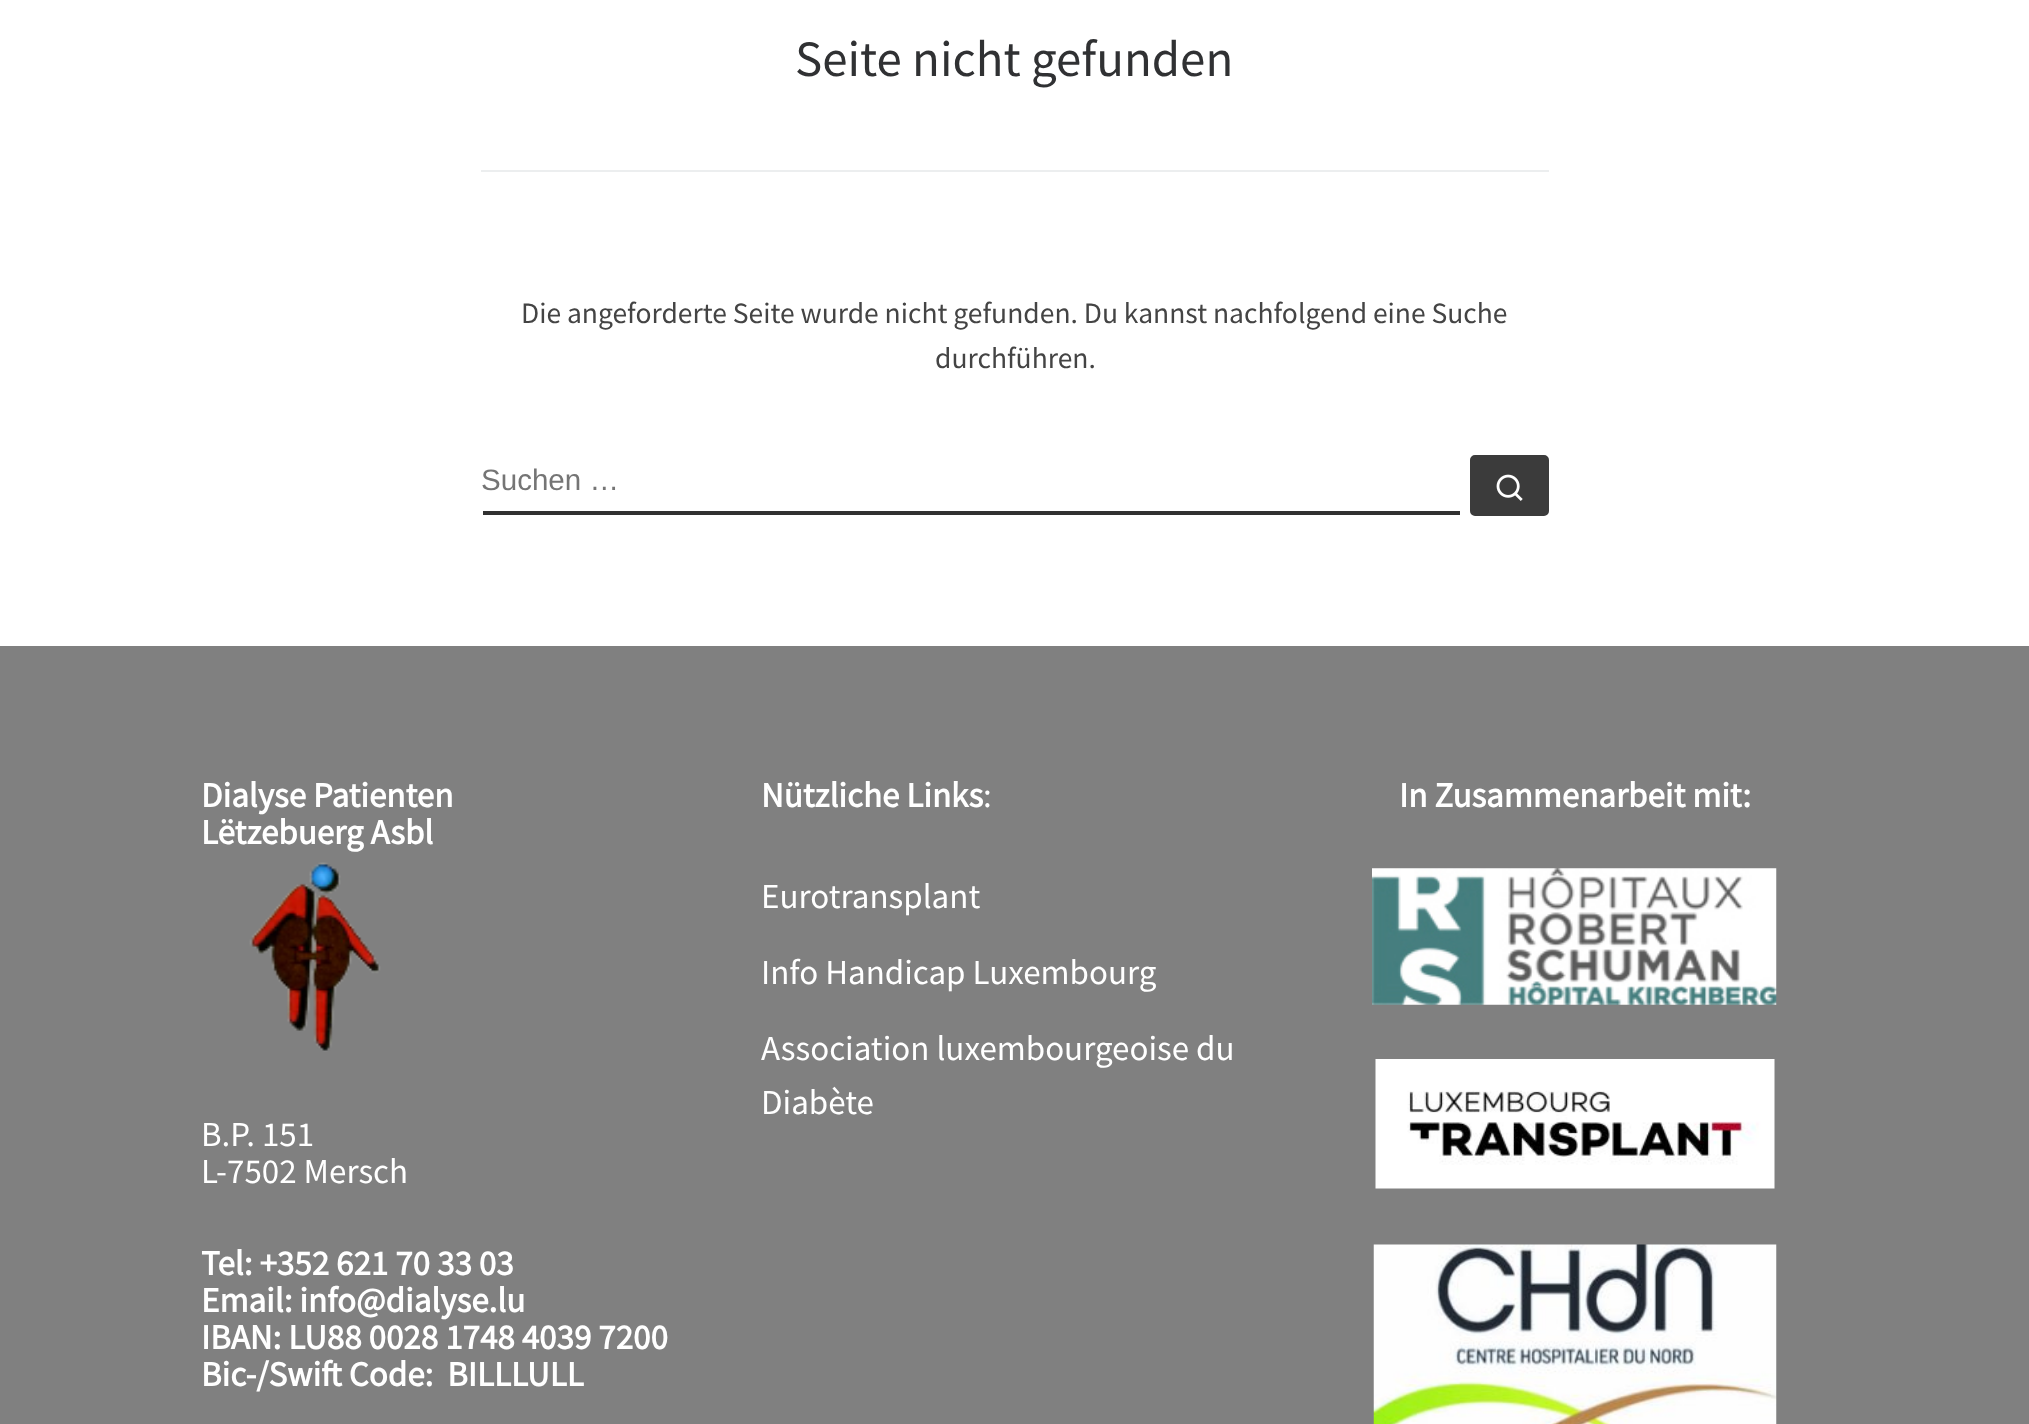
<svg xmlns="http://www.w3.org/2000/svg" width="2029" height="1424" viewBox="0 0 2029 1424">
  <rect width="100%" height="100%" fill="#fff"/>
  <path d="M481 170h1068v2H481z" fill="#eceeef"/>
  <path d="M483 511h977v4H483z" fill="#313131"/>
  <rect x="1472" y="457" width="75" height="57" rx="3" fill="#3b3b3b" stroke="#3b3b3b" stroke-width="4"/>
  <image x="1496" y="474" width="27" height="27" href="img/1.png"/>
  <path d="M0 646h2029v778H0z" fill="#808080"/>
  <image x="249" y="862" width="132" height="190" href="img/2.png"/>
  <image x="1372" y="868" width="405" height="137" href="img/3.png"/>
  <image x="1375" y="1059" width="400" height="130" href="img/4.png"/>
  <image x="1373" y="1244" width="404" height="180" href="img/5.png"/>
  <text x="795" y="76" font-family="Source Sans Pro" font-size="51" fill="#303133">Seite nicht gefunden</text>
  <g font-family="Source Sans Pro" font-size="29.55" fill="#444">
    <text x="521" y="323" word-spacing="-0.1">Die angeforderte Seite wurde nicht gefunden. Du kannst nachfolgend eine Suche</text>
    <text x="935" y="368">durchführen.</text>
  </g>
  <text x="481" y="490" font-family="Liberation Sans" font-size="29.55" fill="#757575">Suchen …</text>
  <g font-family="Source Sans Pro" font-size="35" font-weight="bold" fill="#fff">
    <text x="201" y="807">Dialyse Patienten</text>
    <text x="201" y="844">Lëtzebuerg Asbl</text>
  </g>
  <g font-family="Source Sans Pro" font-size="35" fill="#fff">
    <text x="201" y="1146">B.P. 151</text>
    <text x="201" y="1183">L-7502 Mersch</text>
  </g>
  <g font-family="Source Sans Pro" font-size="35" font-weight="bold" fill="#fff">
    <text x="201" y="1275">Tel: +352 621 70 33 03</text>
    <text x="201" y="1312">Email: info@dialyse.lu</text>
    <text x="201" y="1349">IBAN: LU88 0028 1748 4039 7200</text>
    <text x="201" y="1386" xml:space="preserve">Bic-/Swift Code:  BILLLULL</text>
    <text x="761" y="807">Nützliche Links</text>
  </g>
  <g font-family="Source Sans Pro" font-size="35" fill="#fff">
    <text x="983" y="807">:</text>
    <text x="761" y="908">Eurotransplant</text>
    <text x="761" y="984">Info Handicap Luxembourg</text>
    <text x="761" y="1060">Association luxembourgeoise du</text>
    <text x="761" y="1114">Diabète</text>
  </g>
  <text x="1399" y="807" font-family="Source Sans Pro" font-size="35" font-weight="bold" fill="#fff">In Zusammenarbeit mit:</text>
</svg>
